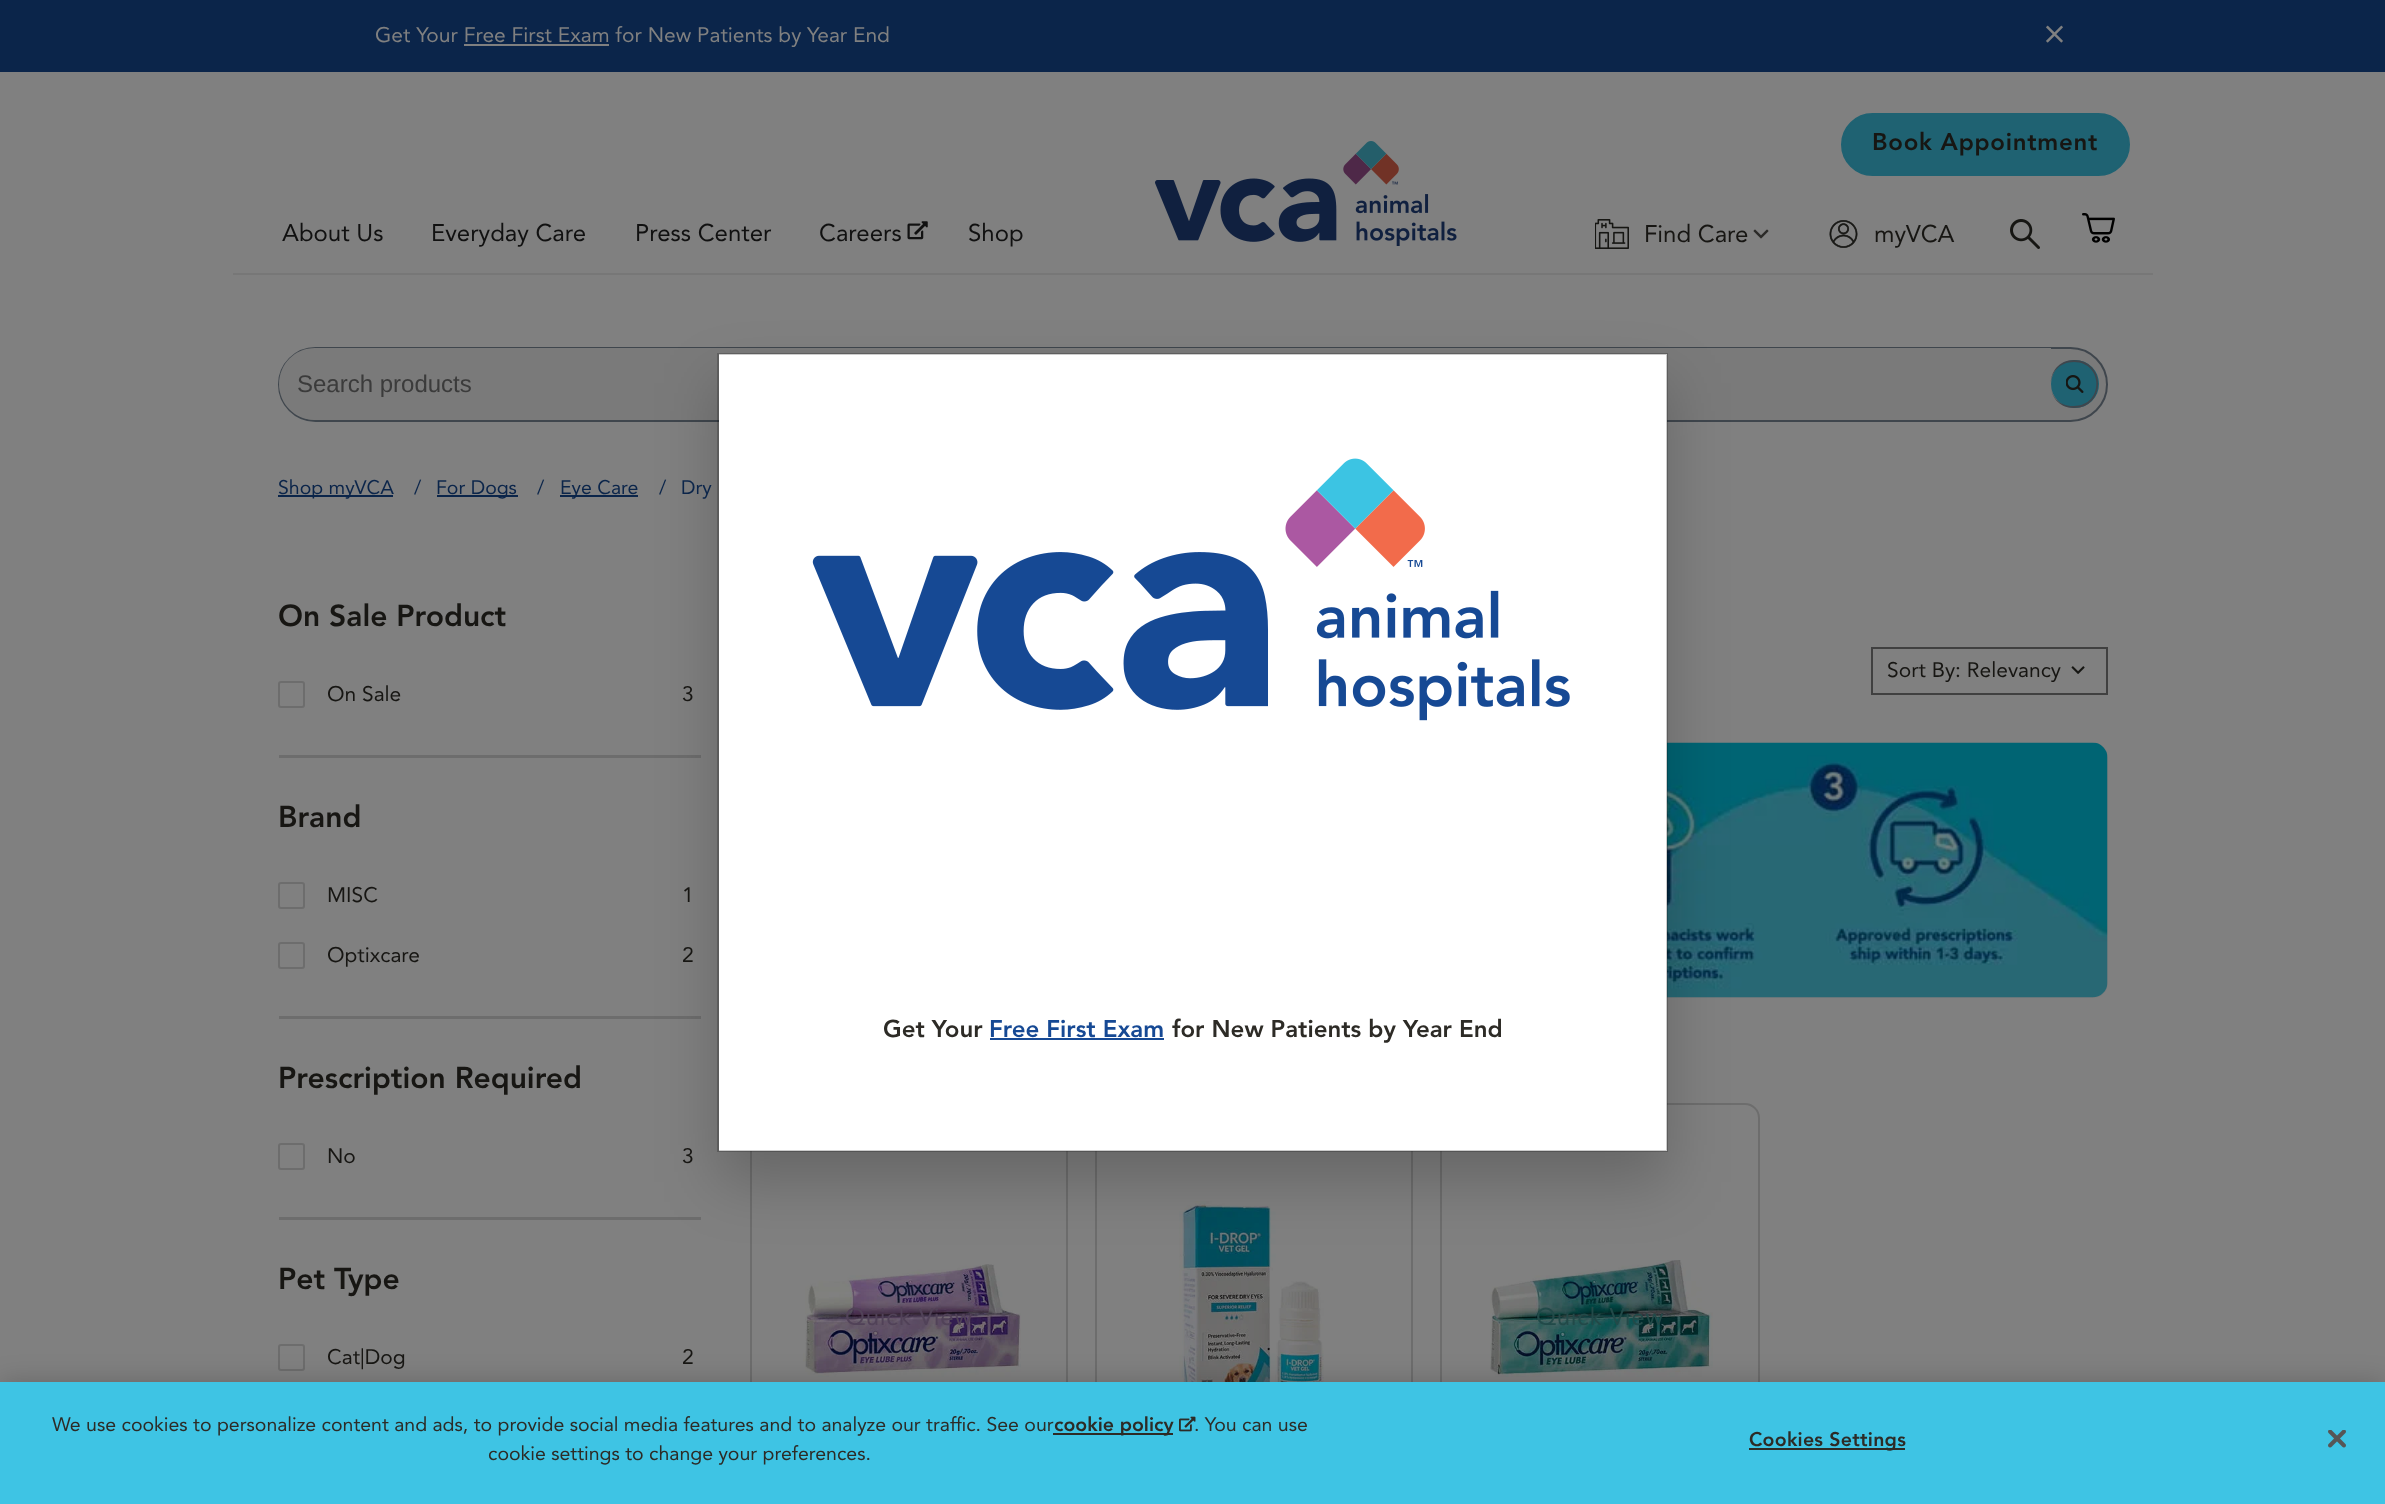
<svg xmlns="http://www.w3.org/2000/svg" width="2385" height="1504" viewBox="0 0 2385 1504">
  <rect width="100%" height="100%" fill="#808080"/>
  <path d="M0 0h2385v72H0z" fill="#0b254a"/>
  <path d="M464 44h145v2H464z" fill="#808080"/>
  <image x="2046" y="25" width="17" height="18" href="img/1.png"/>
  <path d="M233 273h1920v2H233z" fill="#777"/>
  <image x="907" y="221" width="21" height="19" href="img/2.png"/>
  <image x="1155" y="141" width="302" height="105" href="img/3.png"/>
  <rect x="1842" y="114" width="287" height="61" rx="30.5" fill="#1f6272" stroke="#1f6272" stroke-width="2"/>
  <image x="1595" y="219" width="34" height="30" href="img/4.png"/>
  <image x="1753" y="229" width="16" height="10" href="img/5.png"/>
  <image x="1829" y="220" width="29" height="28" href="img/6.png"/>
  <image x="2010" y="219" width="30" height="30" href="img/7.png"/>
  <image x="2082" y="213" width="33" height="30" href="img/8.png"/>
  <rect x="279" y="348" width="1828" height="73" rx="36.5" fill="#7a7a7a" stroke="#3f464d" stroke-width="2"/>
  <path d="M315 348H2051V420H315C295 420 279 404 279 384C279 364 295 348 315 348Z" fill="#7a7a7a"/>
  <circle cx="2075" cy="384" r="24" fill="#1f6272"/>
  <path d="M2074 360C2106 360 2106 408 2074 408C2043 408 2043 360 2074 360ZM2074 362C2104 362 2104 406 2074 406C2043 407 2043 362 2074 362Z" fill="#3f464d" fill-rule="evenodd"/>
  <image x="2066" y="375" width="18" height="18" href="img/9.png"/>
  <path d="M278 495h115v2H278z" fill="#0b254a"/>
  <path d="M437 495h81v2H437z" fill="#0b254a"/>
  <path d="M560 495h78v2H560z" fill="#0b254a"/>
  <path d="M279 755h422v3H279z" fill="#6d6d6d"/>
  <rect x="279" y="682" width="25" height="25" rx="2" fill="none" stroke="#6d6d6d" stroke-width="2"/>
  <path d="M279 1016h422v3H279z" fill="#6d6d6d"/>
  <rect x="279" y="883" width="25" height="25" rx="2" fill="none" stroke="#6d6d6d" stroke-width="2"/>
  <rect x="279" y="943" width="25" height="25" rx="2" fill="none" stroke="#6d6d6d" stroke-width="2"/>
  <path d="M279 1217h422v3H279z" fill="#6d6d6d"/>
  <rect x="279" y="1144" width="25" height="25" rx="2" fill="none" stroke="#6d6d6d" stroke-width="2"/>
  <rect x="279" y="1345" width="25" height="25" rx="2" fill="none" stroke="#6d6d6d" stroke-width="2"/>
  <path d="M1872 648h235v46H1872z" fill="none" stroke="#404040" stroke-width="2"/>
  <image x="2071" y="666" width="14" height="8" href="img/10.png"/>
  <rect x="747" y="743" width="1361" height="255" rx="15" fill="#7c7c7c"/>
  <image x="1667" y="742" width="441" height="256" href="img/11.png"/>
  <path d="M751 1104h316v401H751z" fill="none" stroke="#6d6d6d" stroke-width="2"/>
  <image x="803" y="1264" width="218" height="113" href="img/12.png"/>
  <path d="M1096 1104h316v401H1096z" fill="none" stroke="#6d6d6d" stroke-width="2"/>
  <image x="1179" y="1201" width="145" height="181" href="img/13.png"/>
  <rect x="1441" y="1104" width="318" height="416" rx="14" fill="none" stroke="#6d6d6d" stroke-width="2"/>
  <image x="1490" y="1260" width="223" height="117" href="img/14.png"/>
  <path d="M717 383h951v799H717z" fill="#00000033" filter="blur(30px)"/>
  <path d="M719 354h948v797H719z" fill="#fff"/>
  <path d="M718 354h949v797H718z" fill="none" stroke="#00000033" stroke-width="2"/>
  <image x="812" y="458" width="758" height="263" href="img/15.png"/>
  <path d="M990 1038h174v2H990z" fill="#164994"/>
  <path d="M0 1382h2385v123H0z" fill="#00000033" filter="blur(13.5px)"/>
  <path d="M0 1382h2385v122H0z" fill="#3ec4e4"/>
  <path d="M1053 1433h120v2H1053z" fill="#2d2b26"/>
  <image x="1179" y="1416" width="17" height="16" href="img/16.png"/>
  <path d="M1749 1448h156v2H1749z" fill="#2d2b26"/>
  <image x="2328" y="1430" width="18" height="18" href="img/17.png"/>
  <text x="375" y="42" font-family="Avenir" font-size="21" fill="#808080">Get Your Free First Exam for New Patients by Year End</text>
  <g font-family="Avenir" font-size="24" fill="#111">
    <text x="282" y="241">About Us</text>
    <text x="431" y="241">Everyday Care</text>
    <text x="635" y="241">Press Center</text>
    <text x="819" y="241">Careers</text>
    <text x="968" y="241">Shop</text>
  </g>
  <text x="1872" y="150" font-family="Avenir" font-size="24" font-weight="900" letter-spacing="0.75" fill="#171613">Book Appointment</text>
  <g font-family="Avenir" font-size="24" fill="#171613">
    <text x="1644" y="242">Find Care</text>
    <text x="1874" y="242">myVCA</text>
  </g>
  <text x="297" y="392" font-family="Liberation Sans" font-size="24" fill="#3b3b3b">Search products</text>
  <g font-family="Avenir" font-size="19.5" fill="#0b254a">
    <text x="278" y="494">Shop myVCA</text>
    <text x="414" y="494">/</text>
    <text x="436" y="494">For Dogs</text>
    <text x="537" y="494">/</text>
    <text x="560" y="494">Eye Care</text>
    <text x="659" y="494">/</text>
    <text x="681" y="494">Dry</text>
  </g>
  <text x="278" y="626" font-family="Avenir" font-size="30" font-weight="900" fill="#171613">On Sale Product</text>
  <g font-family="Avenir" font-size="21" fill="#171613">
    <text x="327" y="701">On Sale</text>
    <text x="682" y="701">3</text>
  </g>
  <text x="278" y="827" font-family="Avenir" font-size="30" font-weight="900" fill="#171613">Brand</text>
  <g font-family="Avenir" font-size="21" fill="#171613">
    <text x="327" y="902">MISC</text>
    <text x="682" y="902">1</text>
    <text x="327" y="962">Optixcare</text>
    <text x="682" y="962">2</text>
  </g>
  <text x="278" y="1088" font-family="Avenir" font-size="30" font-weight="900" fill="#171613">Prescription Required</text>
  <g font-family="Avenir" font-size="21" fill="#171613">
    <text x="327" y="1163">No</text>
    <text x="682" y="1163">3</text>
  </g>
  <text x="278" y="1289" font-family="Avenir" font-size="30" font-weight="900" fill="#171613">Pet Type</text>
  <g font-family="Avenir" font-size="21" fill="#171613">
    <text x="327" y="1364">Cat|Dog</text>
    <text x="682" y="1364">2</text>
    <text x="1887" y="677">Sort By: Relevancy</text>
  </g>
  <text x="845" y="1325" font-family="Avenir" font-size="24" letter-spacing="0.75" fill="#514258">Quick View</text>
  <text x="1536" y="1325" font-family="Avenir" font-size="24" letter-spacing="0.75" fill="#224a49">Quick View</text>
  <text x="883" y="1037" font-family="Avenir" font-size="24" font-weight="900" fill="#2d2b26">Get Your</text>
  <text x="989" y="1037" font-family="Avenir" font-size="24" font-weight="900" fill="#164994">Free First Exam</text>
  <text x="1172" y="1037" font-family="Avenir" font-size="24" font-weight="900" fill="#2d2b26">for New Patients by Year End</text>
  <text x="52" y="1431" font-family="Avenir" font-size="19.5" fill="#2d2b26">We use cookies to personalize content and ads, to provide social media features and to analyze our traffic. See our</text>
  <text x="1054" y="1431" font-family="Avenir" font-size="19.5" font-weight="900" fill="#2d2b26">cookie policy</text>
  <g font-family="Avenir" font-size="19.5" fill="#2d2b26">
    <text x="1194" y="1431">. You can use</text>
    <text x="488" y="1460">cookie settings to change your preferences.</text>
  </g>
  <text x="1749" y="1446" font-family="Avenir" font-size="19.5" font-weight="900" letter-spacing="0.25" fill="#2d2b26">Cookies Settings</text>
</svg>
